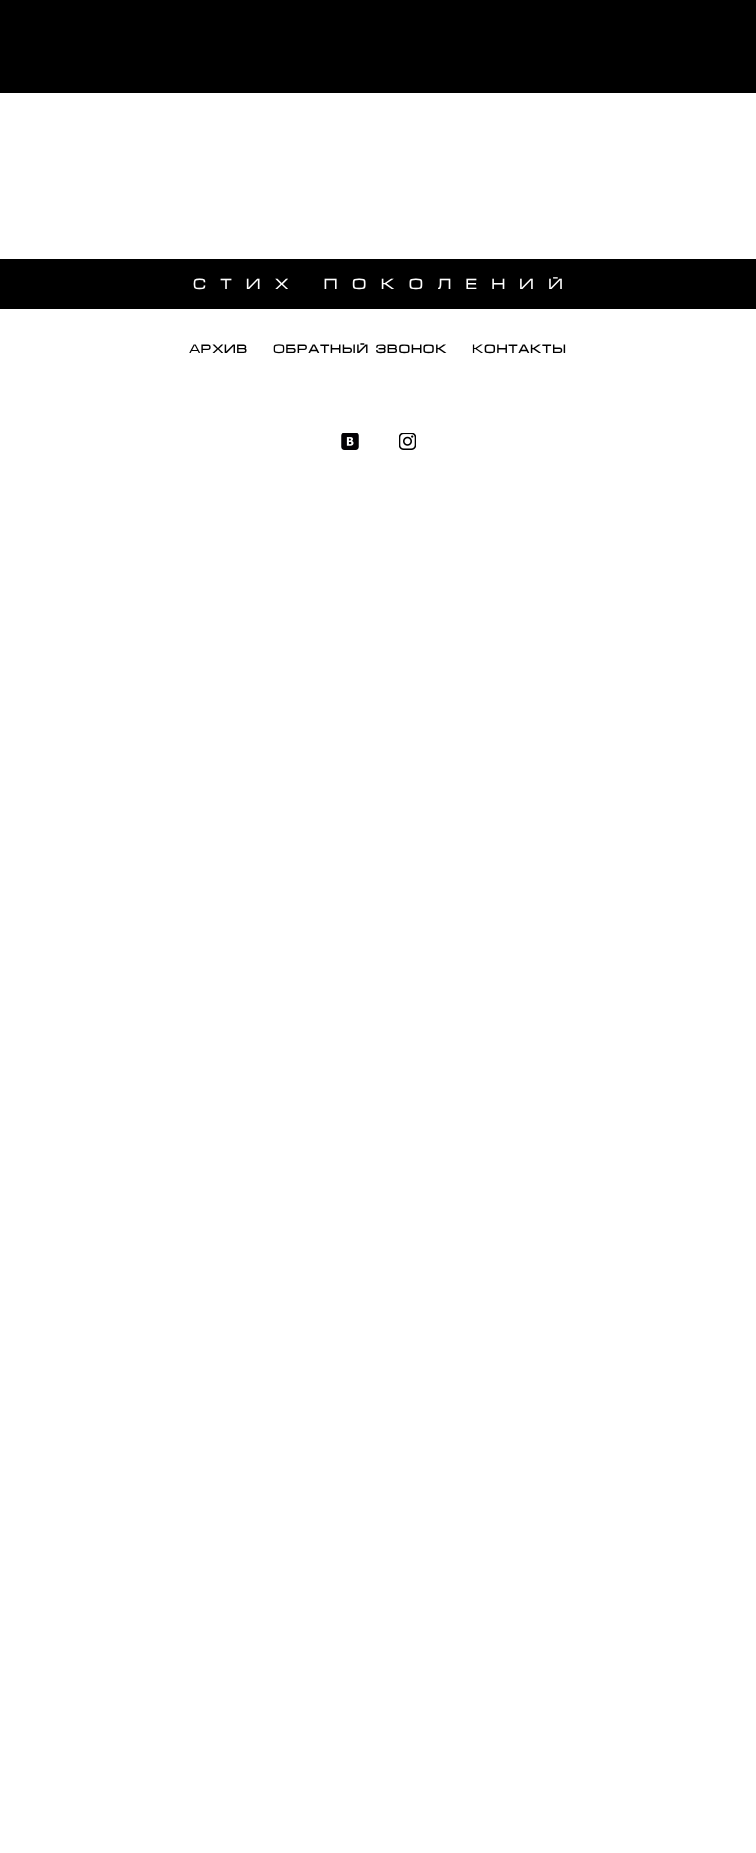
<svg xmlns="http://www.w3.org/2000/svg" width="756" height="1853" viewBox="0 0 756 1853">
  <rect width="100%" height="100%" fill="#fff"/>
  <path d="M0 0h756v93H0z" fill="#000"/>
  <path d="M0 259h756v50H0z" fill="#000"/>
  <image x="341" y="433" width="18" height="17" href="img/1.png"/>
  <image x="399" y="433" width="17" height="17" href="img/2.png"/>
  <text x="193" y="289" font-family="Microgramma" font-size="15" letter-spacing="13.75" fill="#fff">СТИХ ПОКОЛЕНИЙ</text>
  <g font-family="Microgramma" font-size="12.5" fill="#000">
    <text x="189" y="353">Архив</text>
    <text x="273" y="353">Обратный звонок</text>
    <text x="472" y="353">Контакты</text>
  </g>
</svg>
